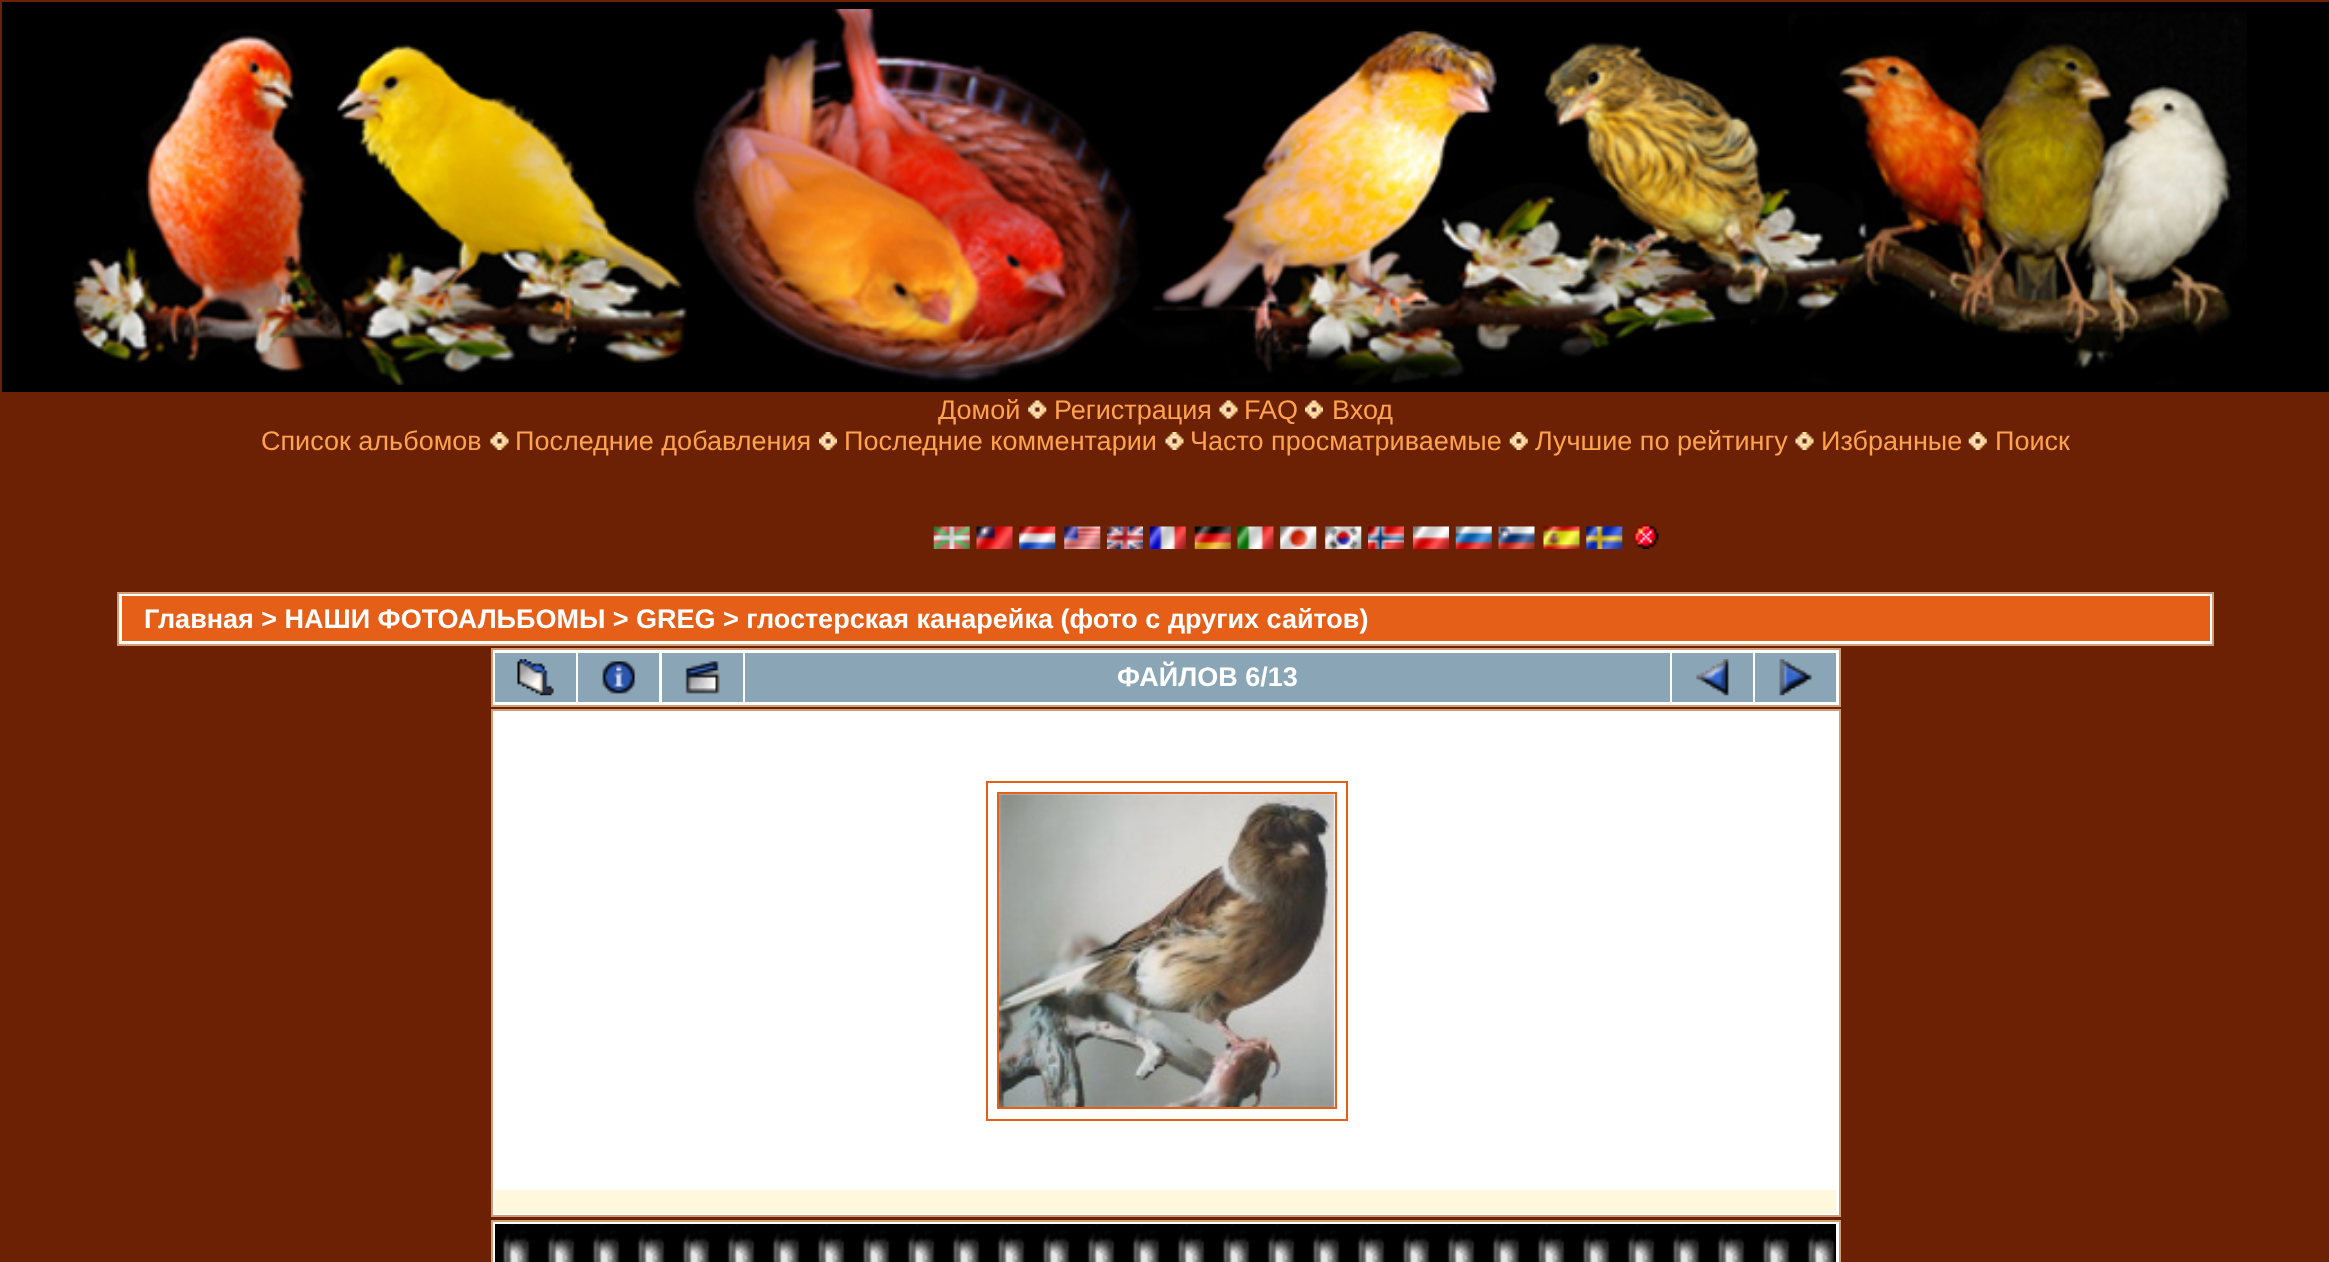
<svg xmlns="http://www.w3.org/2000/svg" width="2329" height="1262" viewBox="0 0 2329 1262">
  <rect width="100%" height="100%" fill="#6c2104"/>
  <path d="M2 2h2327v390H2z" fill="#000"/>
  <image x="72" y="9" width="2175" height="376" href="img/1.png"/>
  <image x="1028" y="400" width="19" height="19" href="img/2.png"/>
  <image x="1219" y="400" width="19" height="19" href="img/3.png"/>
  <image x="1305" y="400" width="18" height="19" href="img/4.png"/>
  <image x="490" y="432" width="19" height="18" href="img/5.png"/>
  <image x="819" y="432" width="18" height="18" href="img/6.png"/>
  <image x="1165" y="432" width="19" height="18" href="img/7.png"/>
  <image x="1509" y="432" width="19" height="18" href="img/8.png"/>
  <image x="1795" y="432" width="19" height="18" href="img/7.png"/>
  <image x="1968" y="432" width="19" height="18" href="img/8.png"/>
  <image x="933" y="526" width="37" height="23" href="img/9.png"/>
  <image x="976" y="526" width="37" height="23" href="img/10.png"/>
  <image x="1019" y="526" width="37" height="23" href="img/11.png"/>
  <image x="1064" y="526" width="37" height="23" href="img/12.png"/>
  <image x="1107" y="526" width="36" height="23" href="img/13.png"/>
  <image x="1149" y="526" width="37" height="23" href="img/14.png"/>
  <image x="1194" y="526" width="37" height="23" href="img/15.png"/>
  <image x="1237" y="526" width="37" height="23" href="img/16.png"/>
  <image x="1280" y="526" width="37" height="23" href="img/17.png"/>
  <image x="1325" y="526" width="37" height="23" href="img/18.png"/>
  <image x="1368" y="526" width="36" height="23" href="img/19.png"/>
  <image x="1413" y="526" width="36" height="23" href="img/20.png"/>
  <image x="1455" y="526" width="37" height="23" href="img/21.png"/>
  <image x="1498" y="526" width="37" height="23" href="img/22.png"/>
  <image x="1543" y="526" width="37" height="23" href="img/23.png"/>
  <image x="1586" y="526" width="37" height="23" href="img/24.png"/>
  <image x="1633" y="524" width="26" height="25" href="img/25.png"/>
  <path d="M118 593h2095v52H118z" fill="#fff" stroke="#cf9e76" stroke-width="2"/>
  <path d="M122 596h2088v45H122z" fill="#e55f19"/>
  <path d="M492 649h1348v57H492z" fill="#fff" stroke="#cf9e76" stroke-width="2"/>
  <path d="M495 653h81v49H495z" fill="#8aa5b5"/>
  <image x="517" y="659" width="37" height="37" href="img/26.png"/>
  <path d="M578 653h81v49H578z" fill="#8aa5b5"/>
  <image x="602" y="661" width="34" height="33" href="img/27.png"/>
  <path d="M662 653h81v49H662z" fill="#8aa5b5"/>
  <image x="685" y="661" width="35" height="33" href="img/28.png"/>
  <path d="M745 653h925v49H745z" fill="#8aa5b5"/>
  <path d="M1672 653h81v49H1672z" fill="#8aa5b5"/>
  <image x="1696" y="659" width="33" height="37" href="img/29.png"/>
  <path d="M1755 653h81v49H1755z" fill="#8aa5b5"/>
  <image x="1779" y="659" width="33" height="37" href="img/30.png"/>
  <path d="M492 710h1348v506H492z" fill="#fff" stroke="#cf9e76" stroke-width="2"/>
  <path d="M987 782h360v338H987z" fill="none" stroke="#e55f19" stroke-width="2"/>
  <path d="M998 793h338v315H998z" fill="none" stroke="#e55f19" stroke-width="2"/>
  <image x="999" y="794" width="336" height="313" href="img/31.png"/>
  <path d="M495 1190h1341v23H495z" fill="#fff8dd"/>
  <path d="M492 1221h1348v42H492z" fill="#fff" stroke="#cf9e76" stroke-width="2"/>
  <image x="495" y="1224" width="1341" height="38" href="img/32.png"/>
  <g font-family="Liberation Sans" font-size="27" fill="#ffa34f">
    <text x="938" y="419">Домой</text>
    <text x="1054" y="419">Регистрация</text>
    <text x="1244" y="419">FAQ</text>
    <text x="1332" y="419">Вход</text>
    <text x="261" y="450">Список альбомов</text>
    <text x="515" y="450">Последние добавления</text>
    <text x="844" y="450">Последние комментарии</text>
    <text x="1190" y="450">Часто просматриваемые</text>
    <text x="1535" y="450">Лучшие по рейтингу</text>
    <text x="1821" y="450">Избранные</text>
    <text x="1995" y="450">Поиск</text>
  </g>
  <g font-family="Liberation Sans" font-size="27" font-weight="bold" fill="#fff">
    <text x="144" y="628">Главная &gt; НАШИ ФОТОАЛЬБОМЫ &gt; GREG &gt; глостерская канарейка (фото с других сайтов)</text>
    <text x="1117" y="686">ФАЙЛОВ 6/13</text>
  </g>
</svg>
